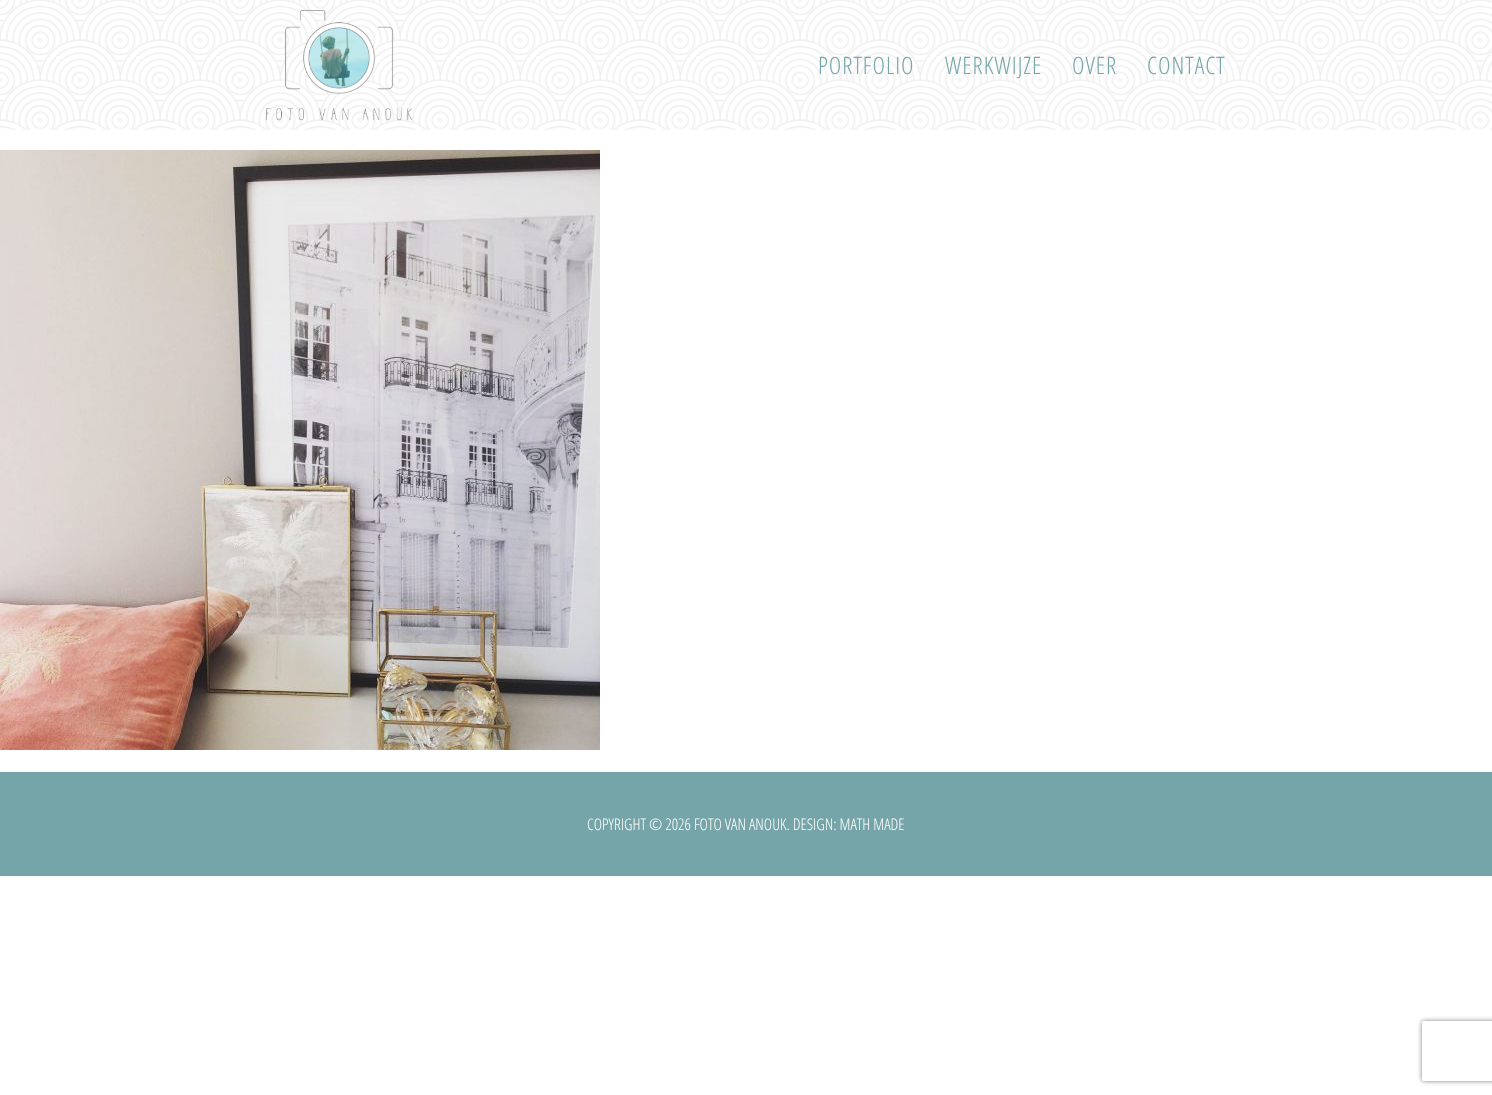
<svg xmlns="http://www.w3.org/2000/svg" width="1492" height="1095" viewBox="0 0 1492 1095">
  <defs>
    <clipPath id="clip1"><path d="M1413 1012H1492V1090H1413ZM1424 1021H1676C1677 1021 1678 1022 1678 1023V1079C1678 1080 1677 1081 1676 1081H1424C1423 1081 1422 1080 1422 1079V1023C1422 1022 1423 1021 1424 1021Z" clip-rule="evenodd"/></clipPath>
  </defs>
  <rect width="100%" height="100%" fill="#fff"/>
  <image x="0" y="0" width="1492" height="130" href="img/1.png"/>
  <image x="266" y="10" width="146" height="111" href="img/2.png"/>
  <image x="0" y="150" width="600" height="600" href="img/3.png"/>
  <path d="M0 772h1492v104H0z" fill="#76a5a9"/>
  <g clip-path="url(#clip1)">
    <rect x="1422" y="1021" width="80" height="60" rx="2" fill="#808080" filter="blur(2.5px)"/>
  </g>
  <g font-family="Open Sans Condensed" font-size="24" font-weight="300" letter-spacing="1" fill="#76a5a9">
    <text x="818" y="74">PORTFOLIO</text>
    <text x="945" y="74">WERKWIJZE</text>
    <text x="1072" y="74">OVER</text>
    <text x="1147" y="74">CONTACT</text>
  </g>
  <text x="587" y="830" font-family="Open Sans Condensed" font-size="16" font-weight="300" fill="#fff">COPYRIGHT © 2026 FOTO VAN ANOUK. DESIGN: MATH MADE</text>
</svg>
